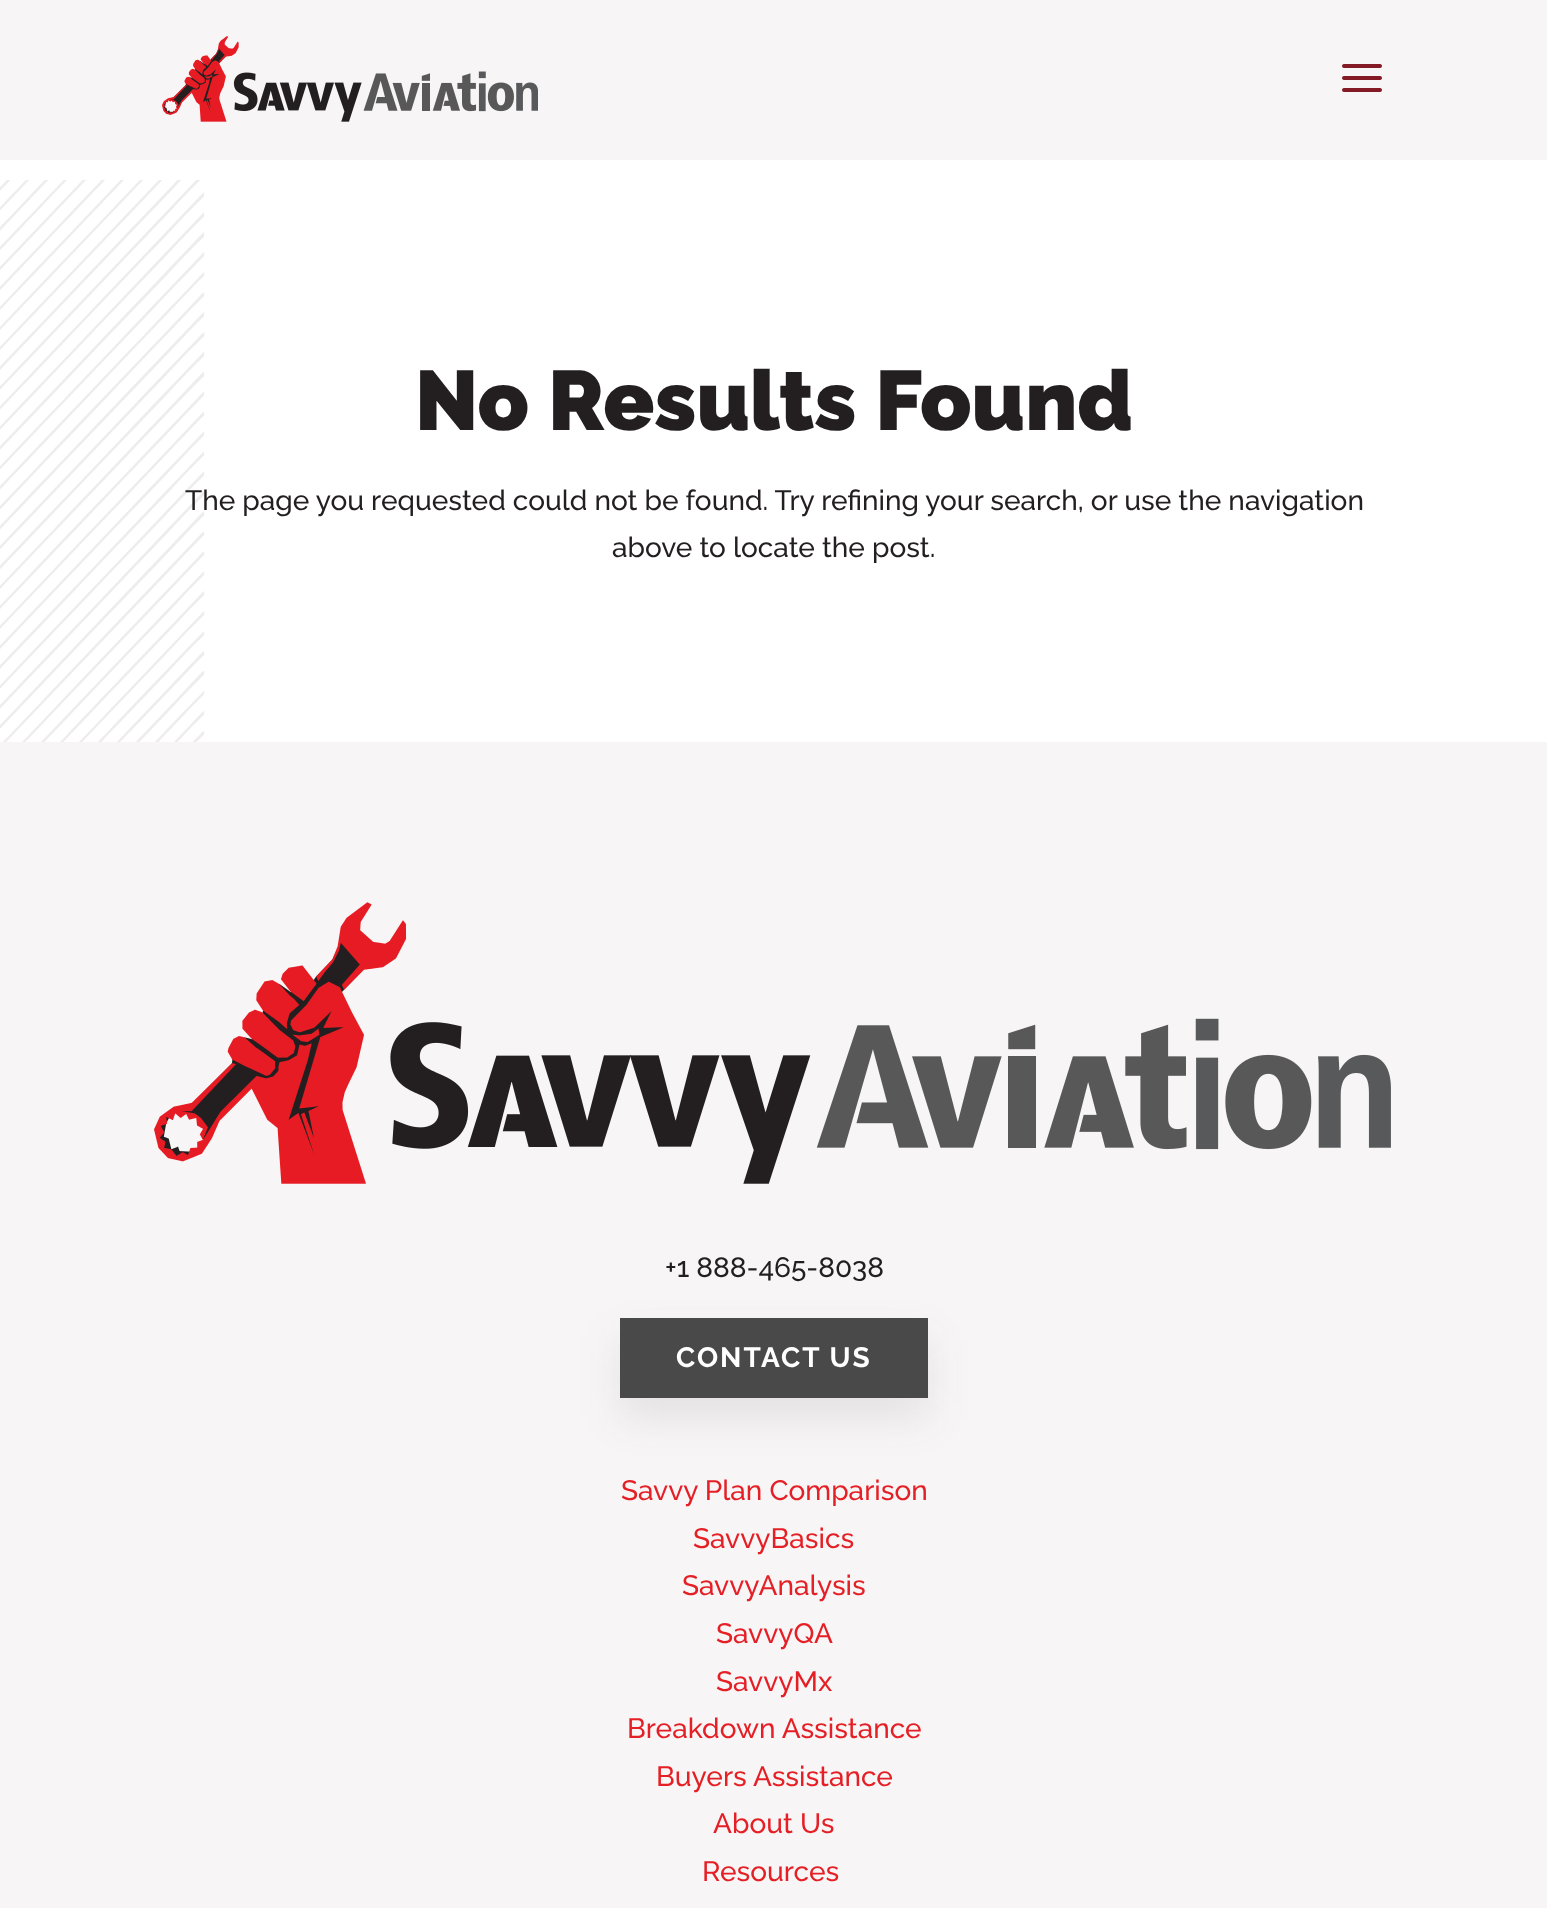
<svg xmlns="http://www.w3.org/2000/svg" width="1547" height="1908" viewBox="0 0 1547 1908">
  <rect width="100%" height="100%" fill="#fff"/>
  <path d="M0 0h1547v160H0z" fill="#f7f5f5"/>
  <image x="162" y="36" width="376" height="86" href="img/1.png"/>
  <image x="1342" y="64" width="40" height="28" href="img/2.png"/>
  <image x="0" y="180" width="205" height="562" href="img/3.png"/>
  <path d="M0 742h1547v1166H0z" fill="#f7f5f5"/>
  <image x="154" y="902" width="1237" height="282" href="img/4.png"/>
  <path d="M620 1338h308v80H620z" fill="#3636391a" filter="blur(20px)"/>
  <path d="M620 1318h308v80H620z" fill="#4a494a"/>
  <text x="415" y="430" font-family="Raleway" font-size="84" font-weight="900" fill="#231f20">No Results Found</text>
  <g font-family="Raleway" font-size="28" font-weight="500" fill="#231f20">
    <text x="185" y="510">The page you requested could not be found. Try refining your search, or use the navigation</text>
    <text x="612" y="557">above to locate the post.</text>
    <text x="665" y="1277">+1 888-465-8038</text>
  </g>
  <text x="676" y="1367" font-family="Raleway" font-size="28" font-weight="bold" letter-spacing="2" fill="#fff">CONTACT US</text>
  <g font-family="Raleway" font-size="28" font-weight="500" fill="#e51f26">
    <text x="621" y="1500">Savvy Plan Comparison</text>
    <text x="693" y="1548">SavvyBasics</text>
    <text x="682" y="1595">SavvyAnalysis</text>
    <text x="716" y="1643">SavvyQA</text>
    <text x="716" y="1691">SavvyMx</text>
    <text x="627" y="1738">Breakdown Assistance</text>
    <text x="656" y="1786">Buyers Assistance</text>
    <text x="713" y="1833">About Us</text>
    <text x="702" y="1881">Resources</text>
  </g>
</svg>
